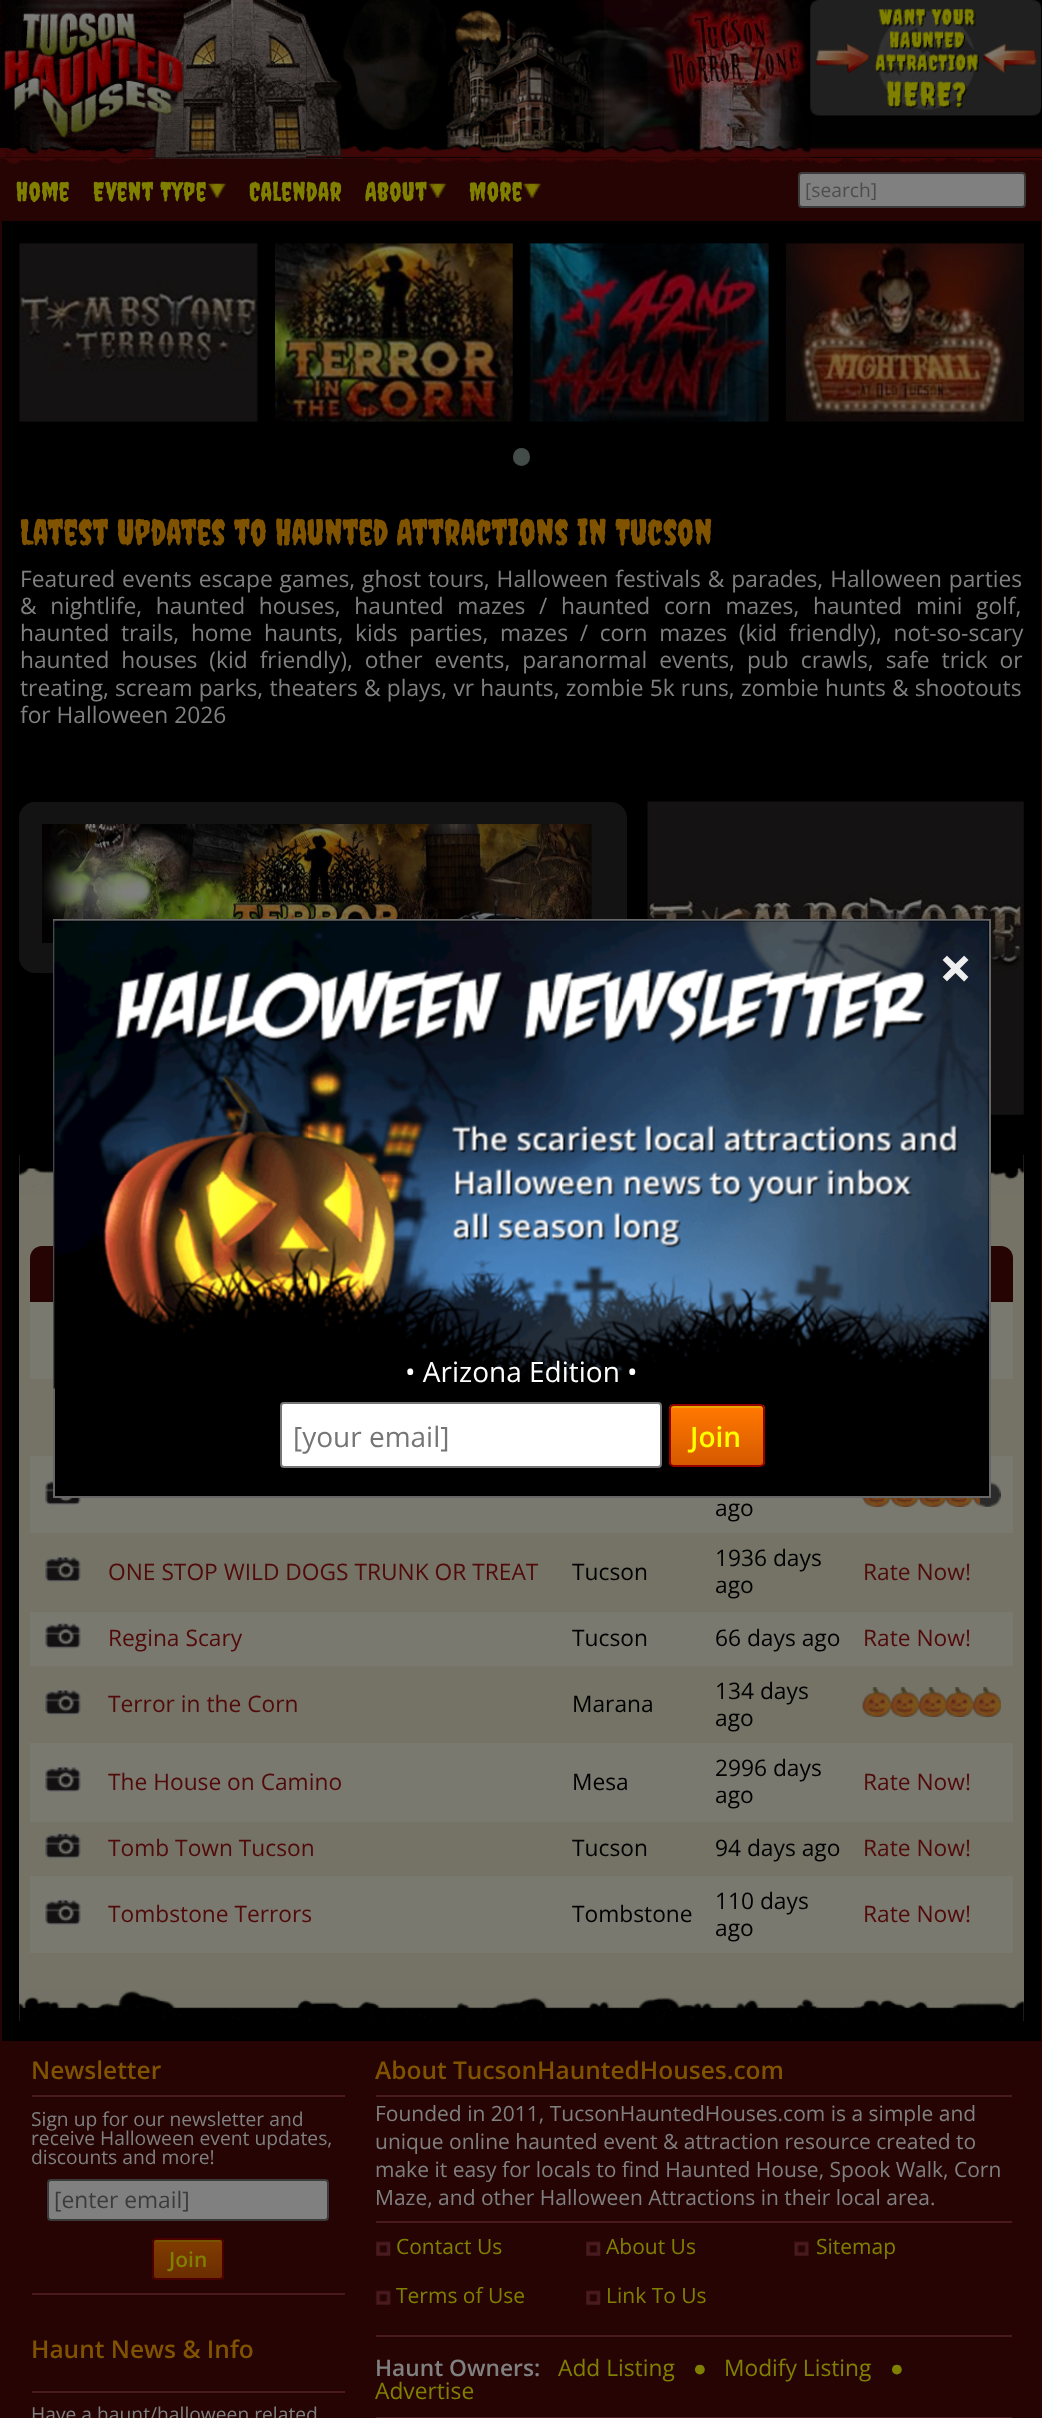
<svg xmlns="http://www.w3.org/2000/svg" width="1042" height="2418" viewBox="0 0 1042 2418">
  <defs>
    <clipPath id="clip1"><rect x="152" y="2238" width="72" height="42" rx="4"/></clipPath>
    <linearGradient id="g1" gradientUnits="userSpaceOnUse" x1="188" y1="2240" x2="188" y2="2279"><stop offset="0.05" stop-color="#803c00"/><stop offset="1" stop-color="#6b2d00"/></linearGradient>
    <clipPath id="clip2"><rect x="669" y="1404" width="96" height="63" rx="5"/></clipPath>
    <linearGradient id="g2" gradientUnits="userSpaceOnUse" x1="716" y1="1406" x2="716" y2="1465"><stop offset="0.05" stop-color="#f70"/><stop offset="1" stop-color="#d55900"/></linearGradient>
  </defs>
  <rect width="100%" height="100%" fill="#fff"/>
  <image x="0" y="157" width="1042" height="1" href="img/1.png"/>
  <path d="M0 166h1042v55H0z" fill="#260404"/>
  <image x="0" y="157" width="1042" height="10" href="img/9.png"/>
  <image x="0" y="0" width="1042" height="158" href="img/2.png"/>
  <image x="0" y="0" width="184" height="158" href="img/3.png"/>
  <image x="183" y="0" width="124" height="158" href="img/4.png"/>
  <image x="306" y="0" width="176" height="156" href="img/5.png"/>
  <image x="481" y="0" width="123" height="158" href="img/6.png"/>
  <image x="603" y="0" width="208" height="158" href="img/7.png"/>
  <image x="810" y="0" width="232" height="116" href="img/8.png"/>
  <image x="207" y="183" width="19" height="15" href="img/10.png"/>
  <image x="428" y="183" width="19" height="15" href="img/11.png"/>
  <image x="522" y="183" width="19" height="15" href="img/12.png"/>
  <rect x="799" y="173" width="226" height="34" rx="3" fill="#808080" stroke="#3b3b3b" stroke-width="2"/>
  <path d="M2 221h1039v1820H2z" fill="#000"/>
  <path d="M1041 221h1v1821H1041z" fill="#260404"/>
  <path d="M0 2041h1042v377H0z" fill="#260404"/>
  <path d="M0 221h2v1821H0z" fill="#260404"/>
  <image x="19" y="243" width="239" height="179" href="img/13.png"/>
  <image x="275" y="243" width="238" height="179" href="img/14.png"/>
  <image x="529" y="243" width="240" height="179" href="img/15.png"/>
  <image x="786" y="243" width="238" height="179" href="img/16.png"/>
  <rect x="513" y="448" width="17" height="18" rx="8.5" fill="#434c49"/>
  <rect x="19" y="802" width="608" height="171" rx="16" fill="#131313"/>
  <image x="42" y="824" width="550" height="119" href="img/17.png"/>
  <image x="647" y="801" width="377" height="314" href="img/18.png"/>
  <path d="M19 1155h1005v866H19z" fill="#747366"/>
  <image x="19" y="1155" width="1005" height="40" href="img/19.png"/>
  <path d="M42 1246H96V1302H30V1258C30 1251.5 35.5 1246 42 1246Z" fill="#260404"/>
  <path d="M852 1246H1001C1007.5 1246 1013 1251.5 1013 1258V1302H852Z" fill="#260404"/>
  <path d="M30 1302h23v77H30z" fill="#7a796f"/>
  <path d="M991 1302h22v77H991z" fill="#7a796f"/>
  <path d="M30 1456h66v77H30z" fill="#7a796f"/>
  <image x="45" y="1480" width="36" height="25" href="img/20.png"/>
  <path d="M96 1498h756v35H96z" fill="#7a796f"/>
  <path d="M852 1456h161v77H852z" fill="#7a796f"/>
  <image x="862" y="1482" width="139" height="25" href="img/21.png"/>
  <image x="862" y="1498" width="118" height="9" href="img/22.png"/>
  <image x="45" y="1555" width="36" height="27" href="img/23.png"/>
  <path d="M30 1612h983v54H30z" fill="#7a796f"/>
  <image x="45" y="1622" width="36" height="27" href="img/24.png"/>
  <image x="45" y="1688" width="36" height="27" href="img/23.png"/>
  <image x="862" y="1687" width="139" height="30" href="img/25.png"/>
  <image x="862" y="1687" width="139" height="30" href="img/26.png"/>
  <path d="M30 1743h983v79H30z" fill="#7a796f"/>
  <image x="45" y="1765" width="36" height="27" href="img/27.png"/>
  <image x="45" y="1832" width="36" height="27" href="img/28.png"/>
  <path d="M30 1876h983v77H30z" fill="#7a796f"/>
  <image x="45" y="1898" width="36" height="27" href="img/27.png"/>
  <image x="19" y="1990" width="1005" height="32" href="img/29.png"/>
  <path d="M32 2095h313v2H32z" fill="#491a1f"/>
  <rect x="48" y="2180" width="280" height="40" rx="3" fill="#808080" stroke="#3b3b3b" stroke-width="2"/>
  <g clip-path="url(#clip1)">
    <path d="M152 2240h72v39H152z" fill="url(#g1)"/>
  </g>
  <path d="M156 2242H221L222 2244C222 2237 215 2240 209 2240H167C161 2240 154 2237 154 2244C154 2243 155 2242 156 2242Z" fill="#765300"/>
  <rect x="153" y="2239" width="70" height="40" rx="3" fill="none" stroke="#4b0000" stroke-width="2"/>
  <path d="M32 2293h313v2H32z" fill="#491a1f"/>
  <path d="M32 2391h313v2H32z" fill="#491a1f"/>
  <path d="M376 2095h636v2H376z" fill="#491a1f"/>
  <path d="M376 2221h636v2H376z" fill="#491a1f"/>
  <image x="376" y="2241" width="15" height="15" href="img/30.png"/>
  <image x="586" y="2241" width="15" height="15" href="img/30.png"/>
  <image x="794" y="2241" width="15" height="15" href="img/31.png"/>
  <image x="375" y="2290" width="16" height="15" href="img/32.png"/>
  <image x="586" y="2290" width="15" height="15" href="img/30.png"/>
  <path d="M376 2335h636v2H376z" fill="#491a1f"/>
  <path d="M376 2417h636v1H376z" fill="#491a1f"/>
  <path d="M54 920h936v577H54z" fill="#000" stroke="#666" stroke-width="2"/>
  <image x="53" y="920" width="936" height="469" href="img/33.png"/>
  <rect x="281" y="1403" width="380" height="64" rx="3" fill="#fff" stroke="#767676" stroke-width="2"/>
  <g clip-path="url(#clip2)">
    <path d="M669 1405h96v60H669z" fill="url(#g2)"/>
  </g>
  <path d="M673 1408H759C761 1408 763 1409 763 1411C763 1401 753 1405 745 1405H688C680 1405 670 1401 670 1411C670 1409 671 1408 673 1408Z" fill="#eba500"/>
  <rect x="670" y="1405" width="94" height="61" rx="4" fill="none" stroke="#960000" stroke-width="2"/>
  <g font-family="Creepster" font-size="26.25" letter-spacing="0.4" fill="#808000">
    <text x="16" y="201">Home</text>
    <text x="93" y="201">Event Type</text>
    <text x="249" y="201">Calendar</text>
    <text x="365" y="201">About</text>
    <text x="469" y="201">More</text>
  </g>
  <text x="805" y="197" font-family="Open Sans" font-size="19.25" fill="#4d4d4d">[search]</text>
  <text x="20" y="545" font-family="Creepster" font-size="35.8" fill="#805300">Latest Updates to Haunted Attractions in Tucson</text>
  <g font-family="Open Sans" font-size="22.75" fill="#808080">
    <text x="20" y="587" word-spacing="1">Featured events escape games, ghost tours, Halloween festivals &amp; parades, Halloween parties</text>
    <text x="20" y="614" word-spacing="7.75">&amp; nightlife, haunted houses, haunted mazes / haunted corn mazes, haunted mini golf,</text>
    <text x="20" y="641" word-spacing="5.75">haunted trails, home haunts, kids parties, mazes / corn mazes (kid friendly), not-so-scary</text>
    <text x="20" y="668" word-spacing="6.1">haunted houses (kid friendly), other events, paranormal events, pub crawls, safe trick or</text>
    <text x="20" y="696" word-spacing="0.25">treating, scream parks, theaters &amp; plays, vr haunts, zombie 5k runs, zombie hunts &amp; shootouts</text>
    <text x="20" y="723">for Halloween 2026</text>
  </g>
  <text x="715" y="1516" font-family="Open Sans" font-size="22.75" fill="#000">ago</text>
  <text x="108" y="1580" font-family="Open Sans" font-size="22.75" fill="#500a0a">ONE STOP WILD DOGS TRUNK OR TREAT</text>
  <g font-family="Open Sans" font-size="22.75" fill="#000">
    <text x="572" y="1580">Tucson</text>
    <text x="715" y="1566">1936 days</text>
    <text x="715" y="1593">ago</text>
  </g>
  <g font-family="Open Sans" font-size="22.75" fill="#500a0a">
    <text x="863" y="1580">Rate Now!</text>
    <text x="108" y="1646">Regina Scary</text>
  </g>
  <g font-family="Open Sans" font-size="22.75" fill="#000">
    <text x="572" y="1646">Tucson</text>
    <text x="715" y="1646">66 days ago</text>
  </g>
  <g font-family="Open Sans" font-size="22.75" fill="#500a0a">
    <text x="863" y="1646">Rate Now!</text>
    <text x="108" y="1712">Terror in the Corn</text>
  </g>
  <g font-family="Open Sans" font-size="22.75" fill="#000">
    <text x="572" y="1712">Marana</text>
    <text x="715" y="1699">134 days</text>
    <text x="715" y="1726">ago</text>
  </g>
  <text x="108" y="1790" font-family="Open Sans" font-size="22.75" fill="#500a0a">The House on Camino</text>
  <g font-family="Open Sans" font-size="22.75" fill="#000">
    <text x="572" y="1790">Mesa</text>
    <text x="715" y="1776">2996 days</text>
    <text x="715" y="1803">ago</text>
  </g>
  <g font-family="Open Sans" font-size="22.75" fill="#500a0a">
    <text x="863" y="1790">Rate Now!</text>
    <text x="108" y="1856">Tomb Town Tucson</text>
  </g>
  <g font-family="Open Sans" font-size="22.75" fill="#000">
    <text x="572" y="1856">Tucson</text>
    <text x="715" y="1856">94 days ago</text>
  </g>
  <g font-family="Open Sans" font-size="22.75" fill="#500a0a">
    <text x="863" y="1856">Rate Now!</text>
    <text x="108" y="1922">Tombstone Terrors</text>
  </g>
  <g font-family="Open Sans" font-size="22.75" fill="#000">
    <text x="572" y="1922">Tombstone</text>
    <text x="715" y="1909">110 days</text>
    <text x="715" y="1936">ago</text>
  </g>
  <text x="863" y="1922" font-family="Open Sans" font-size="22.75" fill="#500a0a">Rate Now!</text>
  <text x="31" y="2079" font-family="Open Sans" font-size="24.5" font-weight="600" fill="#805300">Newsletter</text>
  <g font-family="Open Sans" font-size="19.25" fill="#808080">
    <text x="31" y="2126">Sign up for our newsletter and</text>
    <text x="31" y="2145">receive Halloween event updates,</text>
    <text x="31" y="2164">discounts and more!</text>
  </g>
  <text x="54" y="2208" font-family="Open Sans" font-size="22.75" fill="#3b3b3b">[enter email]</text>
  <text x="169" y="2267" font-family="Open Sans" font-size="21" font-weight="600" fill="#808000">Join</text>
  <text x="31" y="2358" font-family="Open Sans" font-size="24.5" font-weight="600" fill="#805300">Haunt News &amp; Info</text>
  <text x="31" y="2421" font-family="Open Sans" font-size="19.25" fill="#808080">Have a haunt/halloween related</text>
  <text x="375" y="2079" font-family="Open Sans" font-size="24.5" font-weight="600" fill="#805300">About TucsonHauntedHouses.com</text>
  <g font-family="Open Sans" font-size="21" fill="#808080">
    <text x="375" y="2121">Founded in 2011, TucsonHauntedHouses.com is a simple and</text>
    <text x="375" y="2149">unique online haunted event &amp; attraction resource created to</text>
    <text x="375" y="2177">make it easy for locals to find Haunted House, Spook Walk, Corn</text>
    <text x="375" y="2205">Maze, and other Halloween Attractions in their local area.</text>
  </g>
  <g font-family="Open Sans" font-size="21" fill="#808000">
    <text x="396" y="2254">Contact Us</text>
    <text x="606" y="2254">About Us</text>
    <text x="816" y="2254">Sitemap</text>
    <text x="396" y="2303">Terms of Use</text>
    <text x="606" y="2303">Link To Us</text>
  </g>
  <text x="375" y="2376" font-family="Open Sans" font-size="22.75" font-weight="600" fill="#808080">Haunt Owners:</text>
  <text x="558" y="2376" font-family="Open Sans" font-size="22.75" fill="#808000">Add Listing</text>
  <text x="693" y="2376" font-family="Liberation Sans" font-size="22.75" fill="#808000">●</text>
  <text x="724" y="2376" font-family="Open Sans" font-size="22.75" fill="#808000">Modify Listing</text>
  <text x="890" y="2376" font-family="Liberation Sans" font-size="22.75" fill="#808000">●</text>
  <text x="375" y="2399" font-family="Open Sans" font-size="22.75" fill="#808000">Advertise</text>
  <text x="939" y="989" font-family="Open Sans" font-size="58" font-weight="bold" fill="#eee">×</text>
  <text x="405" y="1382" font-family="Open Sans" font-size="28" fill="#fff">• Arizona Edition •</text>
  <text x="293" y="1447" font-family="Open Sans" font-size="28" fill="#757575">[your email]</text>
  <text x="690" y="1447" font-family="Open Sans" font-size="28" font-weight="600" fill="#ff0">Join</text>
</svg>
